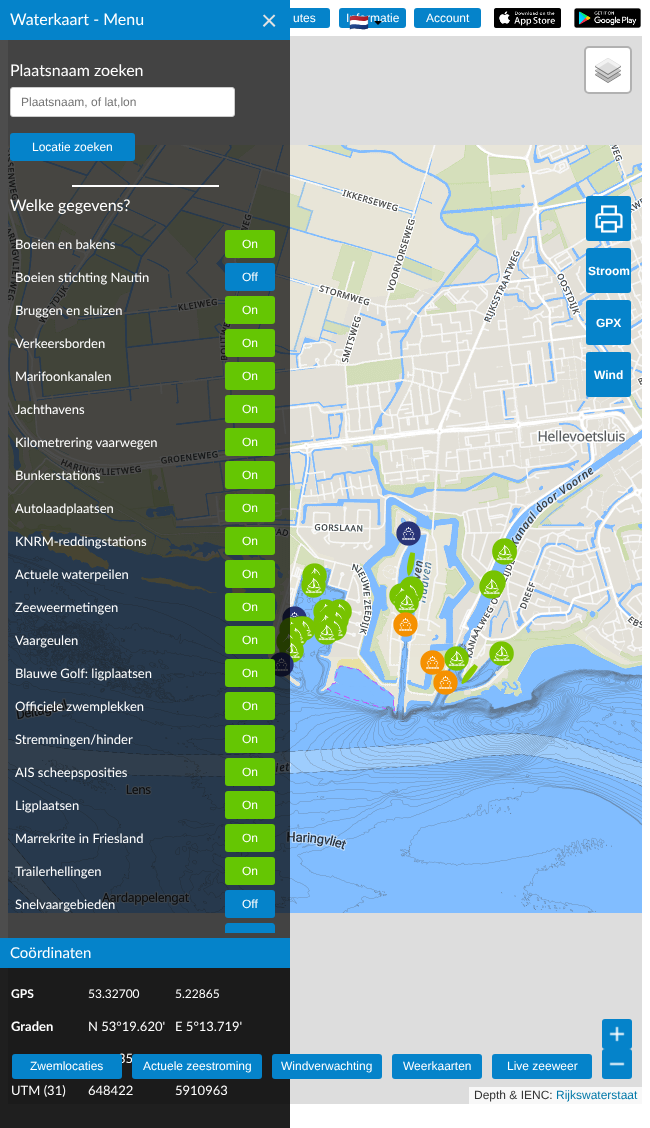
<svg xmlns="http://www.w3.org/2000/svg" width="650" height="1128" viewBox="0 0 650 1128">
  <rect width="100%" height="100%" fill="#fff"/>
  <path d="M8 36h634v1068H8z" fill="#ddd"/>
  <image x="8" y="145" width="168" height="256" href="img/3.png"/>
  <image x="176" y="145" width="256" height="256" href="img/4.png"/>
  <image x="8" y="401" width="168" height="256" href="img/6.png"/>
  <image x="176" y="401" width="256" height="256" href="img/7.png"/>
  <image x="8" y="657" width="168" height="256" href="img/9.png"/>
  <image x="176" y="657" width="256" height="256" href="img/10.png"/>
  <image x="282" y="606" width="25" height="16" href="img/23.png"/>
  <image x="294" y="616" width="11" height="3" href="img/29.png"/>
  <image x="313" y="599" width="20" height="19" href="img/24.png"/>
  <image x="328" y="599" width="24" height="22" href="img/25.png"/>
  <image x="320" y="606" width="20" height="6" href="img/27.png"/>
  <image x="323" y="606" width="19" height="5" href="img/28.png"/>
  <image x="327" y="607" width="22" height="21" href="img/31.png"/>
  <image x="313" y="610" width="24" height="18" href="img/30.png"/>
  <image x="296" y="616" width="20" height="25" href="img/34.png"/>
  <image x="279" y="617" width="25" height="17" href="img/33.png"/>
  <image x="284" y="623" width="24" height="23" href="img/36.png"/>
  <image x="276" y="630" width="25" height="21" href="img/38.png"/>
  <image x="279" y="638" width="25" height="25" href="img/39.png"/>
  <image x="270" y="652" width="24" height="25" href="img/43.png"/>
  <path d="M0 40h290v1088H0z" fill="#010101b3"/>
  <rect x="190" y="8" width="140" height="20" rx="3" fill="#0583ca"/>
  <path d="M0 0h290v40H0z" fill="#0583ca"/>
  <rect x="10.5" y="87.5" width="224" height="29" rx="2.5" fill="#fff" stroke="#ccc"/>
  <rect x="10" y="133" width="125" height="28" rx="3" fill="#0583ca"/>
  <path d="M72 185h147v2H72z" fill="#fff"/>
  <rect x="225" y="230" width="50" height="28" rx="3" fill="#65c603"/>
  <rect x="225" y="263" width="50" height="28" rx="3" fill="#0583ca"/>
  <rect x="225" y="296" width="50" height="28" rx="3" fill="#65c603"/>
  <rect x="225" y="329" width="50" height="28" rx="3" fill="#65c603"/>
  <rect x="225" y="362" width="50" height="28" rx="3" fill="#65c603"/>
  <rect x="225" y="395" width="50" height="28" rx="3" fill="#65c603"/>
  <rect x="225" y="428" width="50" height="28" rx="3" fill="#65c603"/>
  <rect x="225" y="461" width="50" height="28" rx="3" fill="#65c603"/>
  <rect x="225" y="494" width="50" height="28" rx="3" fill="#65c603"/>
  <rect x="225" y="527" width="50" height="28" rx="3" fill="#65c603"/>
  <rect x="225" y="560" width="50" height="28" rx="3" fill="#65c603"/>
  <rect x="225" y="593" width="50" height="28" rx="3" fill="#65c603"/>
  <rect x="225" y="626" width="50" height="28" rx="3" fill="#65c603"/>
  <rect x="225" y="659" width="50" height="28" rx="3" fill="#65c603"/>
  <rect x="225" y="692" width="50" height="28" rx="3" fill="#65c603"/>
  <rect x="225" y="725" width="50" height="28" rx="3" fill="#65c603"/>
  <rect x="225" y="758" width="50" height="28" rx="3" fill="#65c603"/>
  <rect x="225" y="791" width="50" height="28" rx="3" fill="#65c603"/>
  <rect x="225" y="824" width="50" height="28" rx="3" fill="#65c603"/>
  <rect x="225" y="857" width="50" height="28" rx="3" fill="#65c603"/>
  <rect x="225" y="890" width="50" height="28" rx="3" fill="#0583ca"/>
  <path d="M228 923H272C273.5 923 275 924.5 275 926V933H225V926C225 924.5 226.5 923 228 923Z" fill="#0583ca"/>
  <path d="M0 938h290v30H0z" fill="#0583ca"/>
  <path d="M0 968h290v160H0z" fill="#01010199"/>
  <rect x="339" y="8" width="67" height="20" rx="3" fill="#0583ca"/>
  <image x="494" y="8" width="67" height="20" href="img/1.png"/>
  <image x="574" y="8" width="67" height="20" href="img/2.png"/>
  <rect x="414" y="8" width="67" height="20" rx="3" fill="#0583ca"/>
  <image x="432" y="145" width="210" height="256" href="img/5.png"/>
  <image x="432" y="401" width="210" height="256" href="img/8.png"/>
  <image x="432" y="657" width="210" height="256" href="img/11.png"/>
  <image x="396" y="521" width="25" height="25" href="img/12.png"/>
  <image x="492" y="538" width="25" height="17" href="img/13.png"/>
  <image x="302" y="563" width="25" height="19" href="img/14.png"/>
  <image x="406" y="552" width="9" height="24" href="img/15.png"/>
  <image x="492" y="542" width="25" height="23" href="img/16.png"/>
  <image x="301" y="573" width="25" height="25" href="img/17.png"/>
  <image x="481" y="570" width="25" height="22" href="img/18.png"/>
  <image x="400" y="576" width="24" height="19" href="img/19.png"/>
  <image x="479" y="574" width="25" height="25" href="img/20.png"/>
  <image x="401" y="580" width="22" height="23" href="img/21.png"/>
  <image x="389" y="583" width="25" height="23" href="img/22.png"/>
  <image x="394" y="590" width="25" height="24" href="img/26.png"/>
  <image x="393" y="612" width="25" height="25" href="img/32.png"/>
  <image x="324" y="616" width="23" height="25" href="img/35.png"/>
  <image x="314" y="620" width="25" height="25" href="img/37.png"/>
  <image x="444" y="646" width="25" height="25" href="img/41.png"/>
  <image x="420" y="650" width="25" height="25" href="img/40.png"/>
  <image x="489" y="641" width="25" height="25" href="img/42.png"/>
  <image x="433" y="670" width="25" height="25" href="img/44.png"/>
  <image x="461" y="664" width="17" height="20" href="img/45.png"/>
  <rect x="586" y="196" width="45" height="45" rx="3" fill="#0583ca"/>
  <image x="595" y="205" width="28" height="28" href="img/46.png"/>
  <rect x="586" y="248" width="45" height="45" rx="3" fill="#0583ca"/>
  <rect x="586" y="300" width="45" height="45" rx="3" fill="#0583ca"/>
  <rect x="586" y="352" width="45" height="45" rx="3" fill="#0583ca"/>
  <rect x="602" y="1019" width="30" height="30" rx="3" fill="#0583ca"/>
  <image x="609" y="1026" width="16" height="16" href="img/47.png"/>
  <rect x="602" y="1049" width="30" height="30" rx="3" fill="#0583ca"/>
  <image x="609" y="1062" width="16" height="4" href="img/48.png"/>
  <rect x="272" y="1054" width="110" height="25" rx="3" fill="#0583ca"/>
  <rect x="392" y="1054" width="90" height="25" rx="3" fill="#0583ca"/>
  <rect x="492" y="1054" width="100" height="25" rx="3" fill="#0583ca"/>
  <rect x="585" y="47" width="46" height="46" rx="4" fill="#fff" stroke="#b1b1b1" stroke-width="2"/>
  <image x="595" y="58" width="26" height="25" href="img/49.png"/>
  <path d="M469 1087h173v17H469z" fill="#f8f8f8"/>
  <text x="10" y="25" font-family="Lato" font-size="16" fill="#fff">Waterkaart - Menu</text>
  <text x="261" y="30" font-family="Lato" font-size="28" fill="#e2e2e2">×</text>
  <text x="10" y="76" font-family="Lato" font-size="16" fill="#fff">Plaatsnaam zoeken</text>
  <text x="21" y="106" font-family="Liberation Sans" font-size="12" fill="#757575">Plaatsnaam, of lat,lon</text>
  <text x="32" y="151" font-family="Liberation Sans" font-size="12" fill="#fff">Locatie zoeken</text>
  <text x="10" y="211" font-family="Lato" font-size="16" fill="#fff">Welke gegevens?</text>
  <text x="15" y="249" font-family="Lato" font-size="13" fill="#fff">Boeien en bakens</text>
  <text x="242" y="248" font-family="Liberation Sans" font-size="12" fill="#fff">On</text>
  <text x="15" y="282" font-family="Lato" font-size="13" fill="#fff">Boeien stichting Nautin</text>
  <text x="242" y="281" font-family="Liberation Sans" font-size="12" fill="#fff">Off</text>
  <text x="15" y="315" font-family="Lato" font-size="13" fill="#fff">Bruggen en sluizen</text>
  <text x="242" y="314" font-family="Liberation Sans" font-size="12" fill="#fff">On</text>
  <text x="15" y="348" font-family="Lato" font-size="13" fill="#fff">Verkeersborden</text>
  <text x="242" y="347" font-family="Liberation Sans" font-size="12" fill="#fff">On</text>
  <text x="15" y="381" font-family="Lato" font-size="13" fill="#fff">Marifoonkanalen</text>
  <text x="242" y="380" font-family="Liberation Sans" font-size="12" fill="#fff">On</text>
  <text x="15" y="414" font-family="Lato" font-size="13" fill="#fff">Jachthavens</text>
  <text x="242" y="413" font-family="Liberation Sans" font-size="12" fill="#fff">On</text>
  <text x="15" y="447" font-family="Lato" font-size="13" fill="#fff">Kilometrering vaarwegen</text>
  <text x="242" y="446" font-family="Liberation Sans" font-size="12" fill="#fff">On</text>
  <text x="15" y="480" font-family="Lato" font-size="13" fill="#fff">Bunkerstations</text>
  <text x="242" y="479" font-family="Liberation Sans" font-size="12" fill="#fff">On</text>
  <text x="15" y="513" font-family="Lato" font-size="13" fill="#fff">Autolaadplaatsen</text>
  <text x="242" y="512" font-family="Liberation Sans" font-size="12" fill="#fff">On</text>
  <text x="15" y="546" font-family="Lato" font-size="13" fill="#fff">KNRM-reddingstations</text>
  <text x="242" y="545" font-family="Liberation Sans" font-size="12" fill="#fff">On</text>
  <text x="15" y="579" font-family="Lato" font-size="13" fill="#fff">Actuele waterpeilen</text>
  <text x="242" y="578" font-family="Liberation Sans" font-size="12" fill="#fff">On</text>
  <text x="15" y="612" font-family="Lato" font-size="13" fill="#fff">Zeeweermetingen</text>
  <text x="242" y="611" font-family="Liberation Sans" font-size="12" fill="#fff">On</text>
  <text x="15" y="645" font-family="Lato" font-size="13" fill="#fff">Vaargeulen</text>
  <text x="242" y="644" font-family="Liberation Sans" font-size="12" fill="#fff">On</text>
  <text x="15" y="678" font-family="Lato" font-size="13" fill="#fff">Blauwe Golf: ligplaatsen</text>
  <text x="242" y="677" font-family="Liberation Sans" font-size="12" fill="#fff">On</text>
  <text x="15" y="711" font-family="Lato" font-size="13" fill="#fff">Officiele zwemplekken</text>
  <text x="242" y="710" font-family="Liberation Sans" font-size="12" fill="#fff">On</text>
  <text x="15" y="744" font-family="Lato" font-size="13" fill="#fff">Stremmingen/hinder</text>
  <text x="242" y="743" font-family="Liberation Sans" font-size="12" fill="#fff">On</text>
  <text x="15" y="777" font-family="Lato" font-size="13" fill="#fff">AIS scheepsposities</text>
  <text x="242" y="776" font-family="Liberation Sans" font-size="12" fill="#fff">On</text>
  <text x="15" y="810" font-family="Lato" font-size="13" fill="#fff">Ligplaatsen</text>
  <text x="242" y="809" font-family="Liberation Sans" font-size="12" fill="#fff">On</text>
  <text x="15" y="843" font-family="Lato" font-size="13" fill="#fff">Marrekrite in Friesland</text>
  <text x="242" y="842" font-family="Liberation Sans" font-size="12" fill="#fff">On</text>
  <text x="15" y="876" font-family="Lato" font-size="13" fill="#fff">Trailerhellingen</text>
  <text x="242" y="875" font-family="Liberation Sans" font-size="12" fill="#fff">On</text>
  <text x="15" y="909" font-family="Lato" font-size="13" fill="#fff">Snelvaargebieden</text>
  <text x="242" y="908" font-family="Liberation Sans" font-size="12" fill="#fff">Off</text>
  <text x="10" y="958" font-family="Lato" font-size="15" fill="#fff">Coördinaten</text>
  <text x="11" y="998" font-family="Lato" font-size="12" font-weight="bold" fill="#fff">GPS</text>
  <g font-family="Lato" font-size="12" fill="#fff">
    <text x="88" y="998">53.32700</text>
    <text x="175" y="998">5.22865</text>
  </g>
  <text x="11" y="1031" font-family="Lato" font-size="13" font-weight="bold" fill="#fff">Graden</text>
  <g font-family="Lato" font-size="13" fill="#fff">
    <text x="88" y="1031">N 53°19.620'</text>
    <text x="175" y="1031">E 5°13.719'</text>
    <text x="118" y="1063">35</text>
    <text x="11" y="1095">UTM (31)</text>
    <text x="88" y="1095">648422</text>
    <text x="175" y="1095">5910963</text>
  </g>
  <g font-family="Liberation Sans" font-size="12" fill="#fff">
    <text x="346" y="22">Informatie</text>
    <text x="293" y="22">utes</text>
  </g>
  <text x="349" y="28" font-family="Noto Color Emoji" font-size="16" fill="#333">🇳🇱</text>
  <path d="M374 21H382L378 25Z" fill="#000"/>
  <text x="426" y="22" font-family="Liberation Sans" font-size="12" fill="#fff">Account</text>
  <g font-family="Liberation Sans" font-size="12" font-weight="bold" fill="#fff">
    <text x="588" y="275">Stroom</text>
    <text x="596" y="327">GPX</text>
    <text x="594" y="379">Wind</text>
  </g>
  <rect x="12" y="1054" width="110" height="25" rx="3" fill="#0583ca"/>
  <text x="30" y="1070" font-family="Liberation Sans" font-size="12" fill="#fff">Zwemlocaties</text>
  <rect x="132" y="1054" width="130" height="25" rx="3" fill="#0583ca"/>
  <g font-family="Liberation Sans" font-size="12" fill="#fff">
    <text x="143" y="1070">Actuele zeestroming</text>
    <text x="281" y="1070">Windverwachting</text>
    <text x="403" y="1070">Weerkaarten</text>
    <text x="507" y="1070">Live zeeweer</text>
  </g>
  <text x="474" y="1099" font-family="Liberation Sans" font-size="12" fill="#333">Depth &amp; IENC:</text>
  <text x="556" y="1099" font-family="Liberation Sans" font-size="12" fill="#0078a8">Rijkswaterstaat</text>
</svg>
